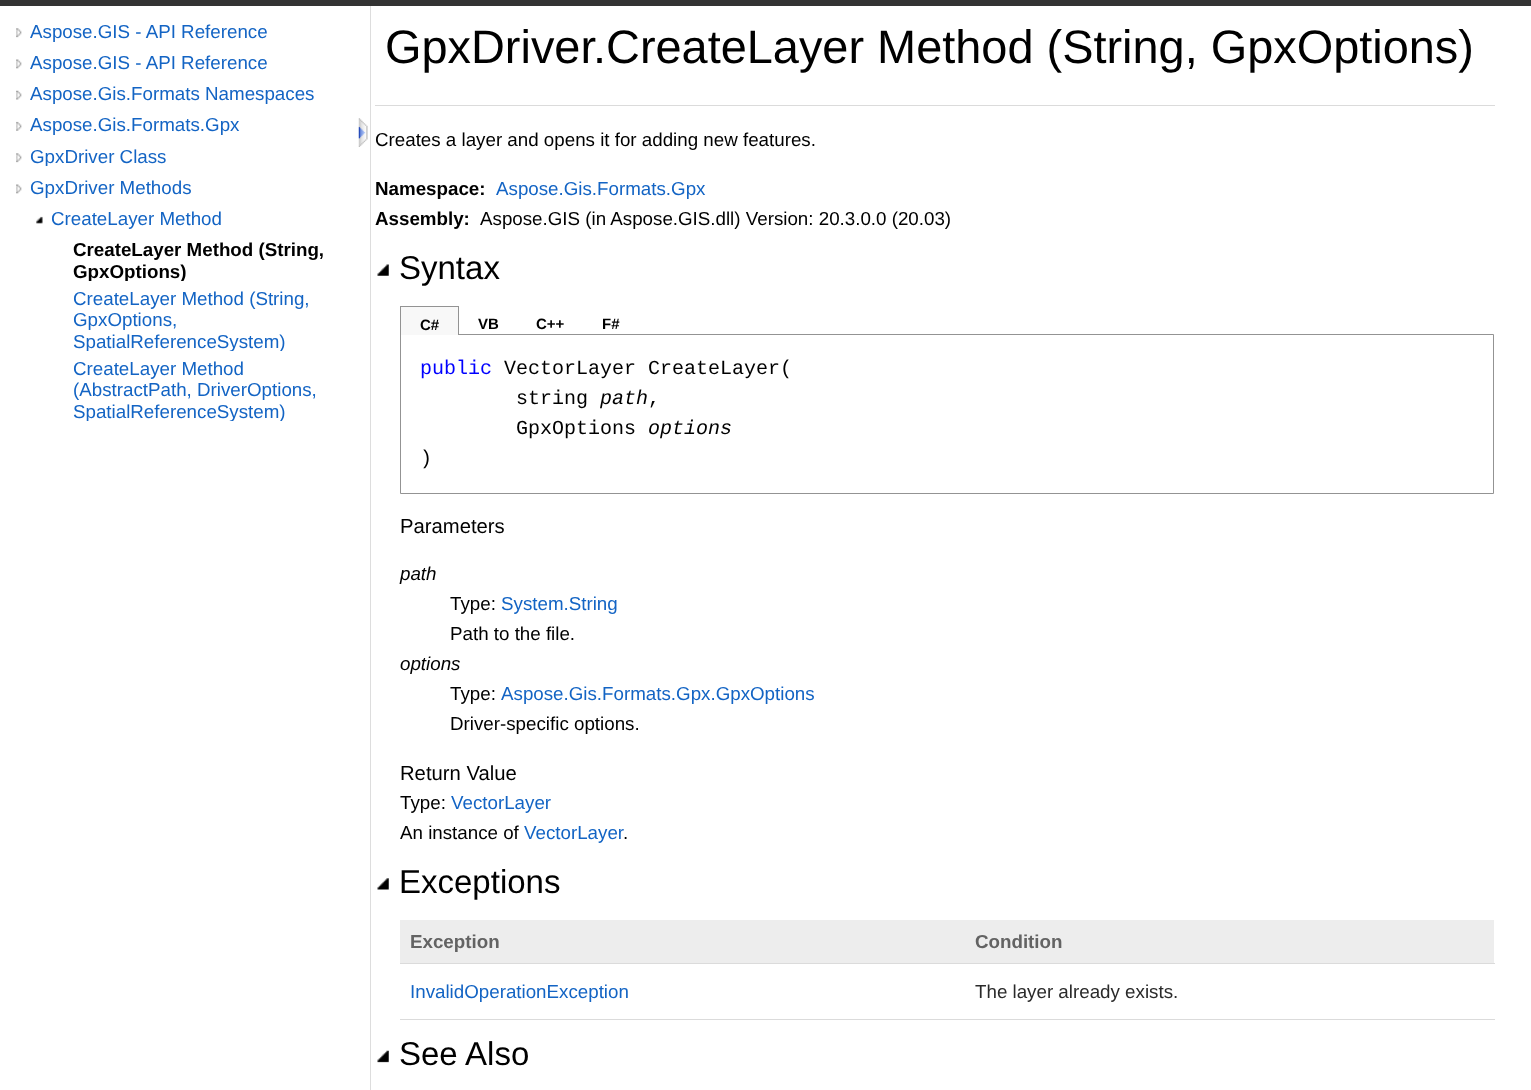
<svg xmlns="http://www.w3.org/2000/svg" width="1531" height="1090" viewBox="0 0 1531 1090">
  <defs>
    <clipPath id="clip1"><path d="M30 145h333v21H30z"/></clipPath>
    <clipPath id="clip2"><path d="M73 239h290v42H73z"/></clipPath>
    <clipPath id="clip3"><path d="M73 288h290v63H73z"/></clipPath>
    <clipPath id="clip4"><path d="M73 358h290v63H73z"/></clipPath>
  </defs>
  <rect width="100%" height="100%" fill="#fff"/>
  <path d="M0 0h1531v6H0z" fill="#333"/>
  <image x="16" y="28" width="6" height="10" href="img/1.png"/>
  <image x="16" y="59" width="6" height="10" href="img/2.png"/>
  <image x="16" y="90" width="6" height="10" href="img/3.png"/>
  <image x="16" y="121" width="6" height="10" href="img/4.png"/>
  <image x="16" y="153" width="6" height="10" href="img/1.png"/>
  <image x="16" y="184" width="6" height="10" href="img/5.png"/>
  <image x="36" y="216" width="7" height="8" href="img/6.png"/>
  <image x="358" y="118" width="10" height="29" href="img/7.png"/>
  <path d="M370 6h1v1084H370z" fill="#ddd"/>
  <path d="M375 105h1120v1H375z" fill="#dbdbdb"/>
  <image x="377" y="264" width="12" height="12" href="img/8.png"/>
  <path d="M400.5 334.5h1093v159H400.5z" fill="none" stroke="#939393"/>
  <path d="M401 307h57v28H401z" fill="#f8f8f8"/>
  <path d="M400 306h59v1H400z" fill="#939393"/>
  <path d="M458 306h1v29H458z" fill="#939393"/>
  <path d="M400 306h1v29H400z" fill="#939393"/>
  <image x="377" y="878" width="12" height="12" href="img/9.png"/>
  <path d="M400 920h1094v43H400z" fill="#ededed"/>
  <path d="M400 963h1095v1H400z" fill="#dbdbdb"/>
  <path d="M400 1019h1095v1H400z" fill="#dbdbdb"/>
  <image x="377" y="1050" width="12" height="13" href="img/10.png"/>
  <g font-family="Liberation Sans" font-size="18.75" fill="#1364c4">
    <text x="30" y="38">Aspose.GIS - API Reference</text>
    <text x="30" y="69">Aspose.GIS - API Reference</text>
    <text x="30" y="100">Aspose.Gis.Formats Namespaces</text>
    <text x="30" y="131">Aspose.Gis.Formats.Gpx</text>
  </g>
  <g clip-path="url(#clip1)">
    <text x="30" y="163" font-family="Liberation Sans" font-size="18.75" fill="#1364c4">GpxDriver Class</text>
  </g>
  <g font-family="Liberation Sans" font-size="18.75" fill="#1364c4">
    <text x="30" y="194">GpxDriver Methods</text>
    <text x="51" y="225">CreateLayer Method</text>
  </g>
  <text x="73" y="256" font-family="Liberation Sans" font-size="18.75" font-weight="bold" fill="#000">CreateLayer Method (String,</text>
  <g clip-path="url(#clip2)">
    <text x="73" y="278" font-family="Liberation Sans" font-size="18.75" font-weight="bold" fill="#000">GpxOptions)</text>
  </g>
  <g font-family="Liberation Sans" font-size="18.75" fill="#1364c4">
    <text x="73" y="305">CreateLayer Method (String,</text>
    <text x="73" y="326">GpxOptions,</text>
  </g>
  <g clip-path="url(#clip3)">
    <text x="73" y="348" font-family="Liberation Sans" font-size="18.75" fill="#1364c4">SpatialReferenceSystem)</text>
  </g>
  <g font-family="Liberation Sans" font-size="18.75" fill="#1364c4">
    <text x="73" y="375">CreateLayer Method</text>
    <text x="73" y="396">(AbstractPath, DriverOptions,</text>
  </g>
  <g clip-path="url(#clip4)">
    <text x="73" y="418" font-family="Liberation Sans" font-size="18.75" fill="#1364c4">SpatialReferenceSystem)</text>
  </g>
  <g font-family="Liberation Sans" font-size="46.9" fill="#000">
    <text x="385" y="63">GpxDriver</text>
    <text x="593" y="63">.CreateLayer Method (String, GpxOptions)</text>
  </g>
  <text x="375" y="146" font-family="Liberation Sans" font-size="18.75" fill="#000">Creates a layer and opens it for adding new features.</text>
  <text x="375" y="195" font-family="Liberation Sans" font-size="18.75" font-weight="bold" fill="#000">Namespace:</text>
  <text x="496" y="195" font-family="Liberation Sans" font-size="18.75" fill="#1364c4">Aspose.Gis.Formats.Gpx</text>
  <text x="375" y="225" font-family="Liberation Sans" font-size="18.75" font-weight="bold" fill="#000">Assembly:</text>
  <text x="480" y="225" font-family="Liberation Sans" font-size="18.75" fill="#000">Aspose.GIS (in Aspose.GIS.dll) Version: 20.3.0.0 (20.03)</text>
  <text x="399" y="279" font-family="Liberation Sans" font-size="33" fill="#000">Syntax</text>
  <g font-family="Liberation Sans" font-size="15" font-weight="bold" fill="#000">
    <text x="420" y="330">C#</text>
    <text x="478" y="329">VB</text>
    <text x="536" y="329">C++</text>
    <text x="602" y="329">F#</text>
  </g>
  <text x="420" y="374" font-family="Liberation Mono" font-size="20" fill="#00f">public</text>
  <g font-family="Liberation Mono" font-size="20" fill="#000">
    <text x="504" y="374">VectorLayer CreateLayer(</text>
    <text x="516" y="404">string</text>
  </g>
  <text x="600" y="404" font-family="Liberation Mono" font-size="20" font-style="italic" fill="#000">path</text>
  <g font-family="Liberation Mono" font-size="20" fill="#000">
    <text x="648" y="404">,</text>
    <text x="516" y="434">GpxOptions</text>
  </g>
  <text x="648" y="434" font-family="Liberation Mono" font-size="20" font-style="italic" fill="#000">options</text>
  <text x="420" y="464" font-family="Liberation Mono" font-size="20" fill="#000">)</text>
  <text x="400" y="533" font-family="Liberation Sans" font-size="20.25" fill="#000">Parameters</text>
  <text x="400" y="580" font-family="Liberation Sans" font-size="18.75" font-style="italic" fill="#000">path</text>
  <text x="450" y="610" font-family="Liberation Sans" font-size="18.75" fill="#000">Type:</text>
  <text x="501" y="610" font-family="Liberation Sans" font-size="18.75" fill="#1364c4">System.String</text>
  <text x="450" y="640" font-family="Liberation Sans" font-size="18.75" fill="#000">Path to the file.</text>
  <text x="400" y="670" font-family="Liberation Sans" font-size="18.75" font-style="italic" fill="#000">options</text>
  <text x="450" y="700" font-family="Liberation Sans" font-size="18.75" fill="#000">Type:</text>
  <text x="501" y="700" font-family="Liberation Sans" font-size="18.75" fill="#1364c4">Aspose.Gis.Formats.Gpx.GpxOptions</text>
  <text x="450" y="730" font-family="Liberation Sans" font-size="18.75" fill="#000">Driver-specific options.</text>
  <text x="400" y="780" font-family="Liberation Sans" font-size="20.25" fill="#000">Return Value</text>
  <text x="400" y="809" font-family="Liberation Sans" font-size="18.75" fill="#000">Type:</text>
  <text x="451" y="809" font-family="Liberation Sans" font-size="18.75" fill="#1364c4">VectorLayer</text>
  <text x="400" y="839" font-family="Liberation Sans" font-size="18.75" fill="#000">An instance of</text>
  <text x="524" y="839" font-family="Liberation Sans" font-size="18.75" fill="#1364c4">VectorLayer</text>
  <text x="623" y="839" font-family="Liberation Sans" font-size="18.75" fill="#000">.</text>
  <text x="399" y="893" font-family="Liberation Sans" font-size="33" fill="#000">Exceptions</text>
  <g font-family="Liberation Sans" font-size="18.75" font-weight="bold" fill="#636363">
    <text x="410" y="948">Exception</text>
    <text x="975" y="948">Condition</text>
  </g>
  <text x="410" y="998" font-family="Liberation Sans" font-size="18.75" fill="#1364c4">InvalidOperationException</text>
  <text x="975" y="998" font-family="Liberation Sans" font-size="18.75" fill="#2a2a2a">The layer already exists.</text>
  <text x="399" y="1065" font-family="Liberation Sans" font-size="33" fill="#000">See Also</text>
</svg>
